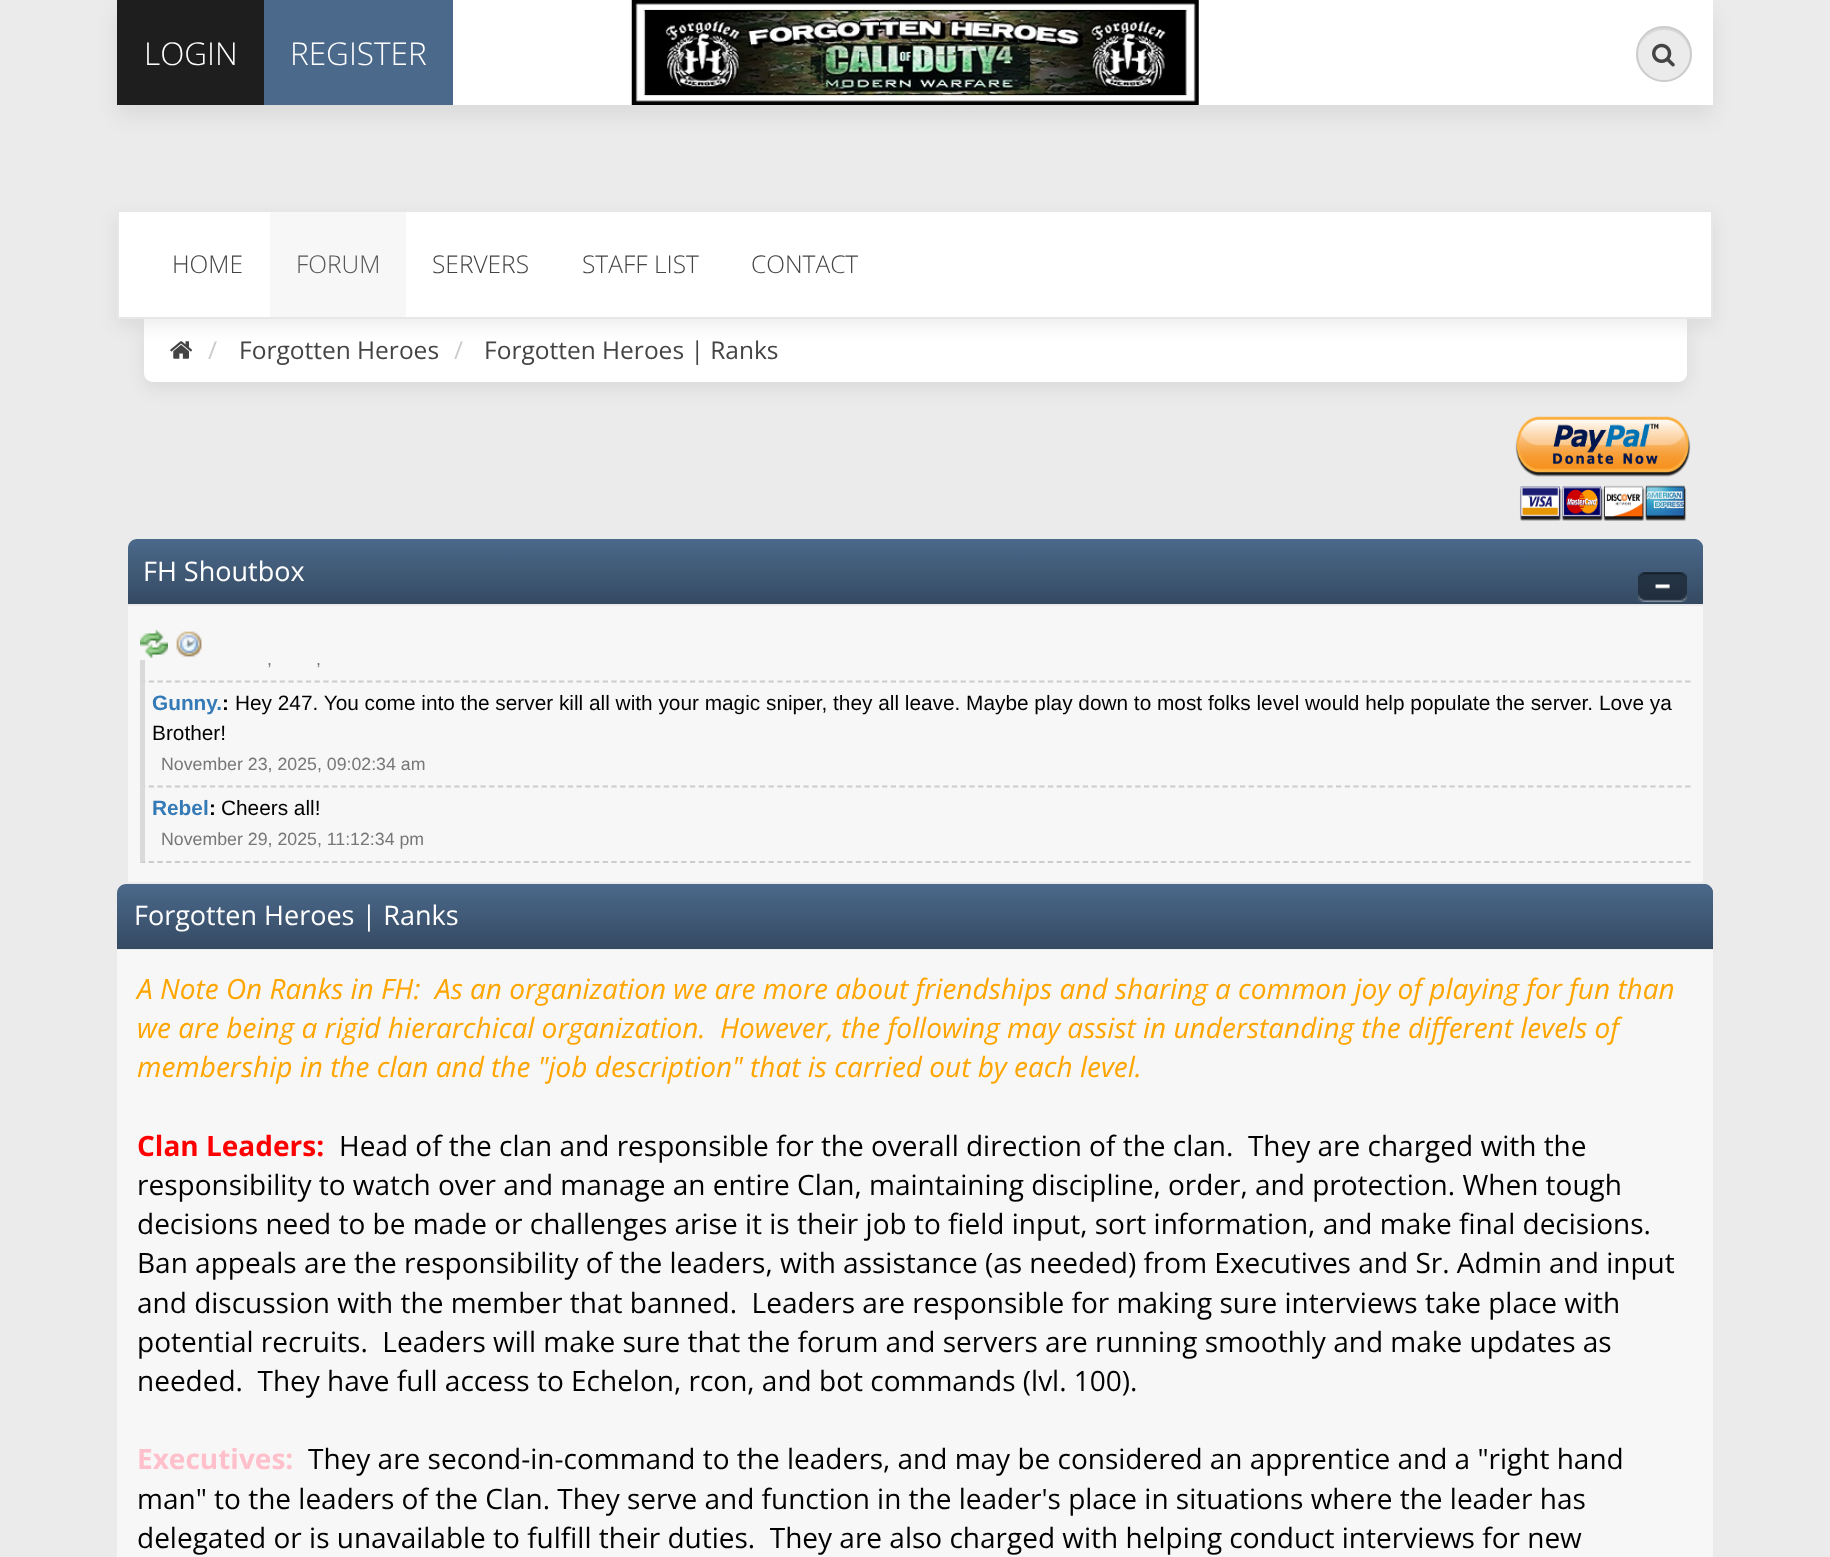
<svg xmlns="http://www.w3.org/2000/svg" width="1830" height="1557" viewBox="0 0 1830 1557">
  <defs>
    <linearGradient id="g1" gradientUnits="userSpaceOnUse" x1="915" y1="539" x2="915" y2="604"><stop offset="0" stop-color="#4b698b"/><stop offset="1" stop-color="#354a62"/></linearGradient>
    <linearGradient id="g2" gradientUnits="userSpaceOnUse" x1="923" y1="539" x2="923" y2="604"><stop offset="0" stop-color="#4b698b"/><stop offset="1" stop-color="#354a62"/></linearGradient>
    <clipPath id="clip1"><path d="M140 660h1551v203H140z"/></clipPath>
    <linearGradient id="g3" gradientUnits="userSpaceOnUse" x1="915" y1="884" x2="915" y2="949"><stop offset="0" stop-color="#4b698b"/><stop offset="1" stop-color="#354a62"/></linearGradient>
    <linearGradient id="g4" gradientUnits="userSpaceOnUse" x1="923" y1="884" x2="923" y2="949"><stop offset="0" stop-color="#4b698b"/><stop offset="1" stop-color="#354a62"/></linearGradient>
  </defs>
  <rect width="100%" height="100%" fill="#ebebeb"/>
  <path d="M117 11h1596v105H117z" fill="#00000012" filter="blur(10.5px)"/>
  <path d="M453 0h1260v105H453z" fill="#fff"/>
  <path d="M117 0h147v105H117z" fill="#1e1e1e"/>
  <path d="M264 0h189v105H264z" fill="#4b698b"/>
  <image x="631" y="0" width="568" height="105" href="img/1.png"/>
  <circle cx="1664" cy="54" r="28" fill="#ebebeb"/>
  <path d="M1664 30C1685 30 1697 53 1686 70C1705 45 1669 12 1646 36C1641 41 1638 48 1638 55C1638 42 1650 30 1664 30Z" fill="#d9d9d9"/>
  <circle cx="1664" cy="54" r="27" fill="none" stroke="#ccc" stroke-width="2"/>
  <image x="1652" y="43" width="23" height="24" href="img/2.png"/>
  <rect x="144" y="326" width="1543" height="63" rx="9" fill="#00000012" filter="blur(9px)"/>
  <path d="M144 319H1687V373C1687 378 1683 382 1678 382H153C148 382 144 378 144 373Z" fill="#fff"/>
  <image x="170" y="341" width="23" height="18" href="img/3.png"/>
  <path d="M117 217h1596v109H117z" fill="#00000012" filter="blur(9px)"/>
  <path d="M118 211h1594v107H118z" fill="#fff" stroke="#e7e7e7" stroke-width="2"/>
  <path d="M270 212h136v105H270z" fill="#f8f7f7"/>
  <image x="1515" y="416" width="176" height="105" href="img/4.png"/>
  <path d="M137 539H1694C1699 539 1703 543 1703 548V604H128V548C128 543 132 539 137 539Z" fill="url(#g1)"/>
  <path d="M144 539H1694C1699 539 1703 543 1703 548V604H144Z" fill="url(#g2)"/>
  <image x="1638" y="572" width="49" height="30" href="img/5.png"/>
  <path d="M128 606h1575v276H128z" fill="#f8f7f7"/>
  <image x="140" y="630" width="28" height="28" href="img/6.png"/>
  <image x="176" y="631" width="26" height="26" href="img/7.png"/>
  <path d="M140 681.5H1690.5" fill="none" stroke="#ccc" stroke-width="1.8" stroke-dasharray="5.25 3.48"/>
  <g clip-path="url(#clip1)">
    <path d="M140 682V578H145V681Z" fill="#dadada"/>
  </g>
  <path d="M140 786.5H1690.5" fill="none" stroke="#ccc" stroke-width="1.8" stroke-dasharray="5.25 3.48"/>
  <path d="M140 788V682H145V786Z" fill="#dadada"/>
  <path d="M140 862H1690.5" fill="none" stroke="#ccc" stroke-width="1.8" stroke-dasharray="5.25 3.48"/>
  <path d="M140 863V788H145V861Z" fill="#dadada"/>
  <path d="M126 884H1704C1709 884 1713 888 1713 893V949H117V893C117 888 121 884 126 884Z" fill="url(#g3)"/>
  <path d="M133 884H1704C1709 884 1713 888 1713 893V949H133Z" fill="url(#g4)"/>
  <path d="M117 950h1596v607H117z" fill="#f8f7f7"/>
  <g font-family="Open Sans" font-size="31.5" font-weight="300" fill="#fff">
    <text x="144" y="65">LOGIN</text>
    <text x="290" y="65">REGISTER</text>
  </g>
  <text x="172" y="273" font-family="Open Sans" font-size="24.5" font-weight="300" fill="#444">HOME</text>
  <text x="296" y="273" font-family="Open Sans" font-size="24.5" font-weight="300" fill="#555">FORUM</text>
  <g font-family="Open Sans" font-size="24.5" font-weight="300" fill="#444">
    <text x="432" y="273">SERVERS</text>
    <text x="582" y="273">STAFF LIST</text>
    <text x="751" y="273">CONTACT</text>
  </g>
  <text x="208" y="359" font-family="Open Sans" font-size="24.5" fill="#ccc">/</text>
  <text x="239" y="359" font-family="Open Sans" font-size="24.5" fill="#444">Forgotten Heroes</text>
  <text x="454" y="359" font-family="Open Sans" font-size="24.5" fill="#ccc">/</text>
  <text x="484" y="359" font-family="Open Sans" font-size="24.5" fill="#444">Forgotten Heroes | Ranks</text>
  <text x="143" y="581" font-family="Open Sans" font-size="27" fill="#fff">FH Shoutbox</text>
  <g font-family="Liberation Sans" font-size="17.75" fill="#777">
    <text x="267" y="665">,</text>
    <text x="316" y="665">,</text>
  </g>
  <text x="152" y="710" font-family="Liberation Sans" font-size="20.82" font-weight="bold" fill="#337ab7">Gunny.</text>
  <text x="222" y="710" font-family="Liberation Sans" font-size="20.82" font-weight="bold" fill="#000">:</text>
  <g font-family="Liberation Sans" font-size="20.82" fill="#000">
    <text x="235" y="710">Hey 247. You come into the server kill all with your magic sniper, they all leave. Maybe play down to most folks level would help populate the server. Love ya</text>
    <text x="152" y="740">Brother!</text>
  </g>
  <text x="161" y="770" font-family="Liberation Sans" font-size="17.75" fill="#777">November 23, 2025, 09:02:34 am</text>
  <text x="152" y="815" font-family="Liberation Sans" font-size="20.82" font-weight="bold" fill="#337ab7">Rebel</text>
  <text x="209" y="815" font-family="Liberation Sans" font-size="20.82" font-weight="bold" fill="#000">:</text>
  <text x="221" y="815" font-family="Liberation Sans" font-size="20.82" fill="#000">Cheers all!</text>
  <text x="161" y="845" font-family="Liberation Sans" font-size="17.75" fill="#777">November 29, 2025, 11:12:34 pm</text>
  <text x="134" y="925" font-family="Open Sans" font-size="27" fill="#fff">Forgotten Heroes | Ranks</text>
  <g font-family="Open Sans" font-size="28" font-style="italic" fill="#ffa500">
    <text x="137" y="999" xml:space="preserve">A Note On Ranks in FH:  As an organization we are more about friendships and sharing a common joy of playing for fun than</text>
    <text x="137" y="1038" xml:space="preserve">we are being a rigid hierarchical organization.  However, the following may assist in understanding the different levels of</text>
    <text x="137" y="1077">membership in the clan and the "job description" that is carried out by each level.</text>
  </g>
  <text x="137" y="1156" font-family="Open Sans" font-size="28" font-weight="bold" fill="#f00">Clan Leaders:</text>
  <g font-family="Open Sans" font-size="28" fill="#000">
    <text x="339" y="1156" xml:space="preserve">Head of the clan and responsible for the overall direction of the clan.  They are charged with the</text>
    <text x="137" y="1195">responsibility to watch over and manage an entire Clan, maintaining discipline, order, and protection. When tough</text>
    <text x="137" y="1234">decisions need to be made or challenges arise it is their job to field input, sort information, and make final decisions.</text>
    <text x="137" y="1273">Ban appeals are the responsibility of the leaders, with assistance (as needed) from Executives and Sr. Admin and input</text>
    <text x="137" y="1313" xml:space="preserve">and discussion with the member that banned.  Leaders are responsible for making sure interviews take place with</text>
    <text x="137" y="1352" xml:space="preserve">potential recruits.  Leaders will make sure that the forum and servers are running smoothly and make updates as</text>
    <text x="137" y="1391" xml:space="preserve">needed.  They have full access to Echelon, rcon, and bot commands (lvl. 100).</text>
  </g>
  <text x="137" y="1469" font-family="Open Sans" font-size="28" font-weight="bold" fill="#ffc0cb">Executives:</text>
  <g font-family="Open Sans" font-size="28" fill="#000">
    <text x="308" y="1469">They are second-in-command to the leaders, and may be considered an apprentice and a "right hand</text>
    <text x="137" y="1509">man" to the leaders of the Clan. They serve and function in the leader's place in situations where the leader has</text>
    <text x="137" y="1548" xml:space="preserve">delegated or is unavailable to fulfill their duties.  They are also charged with helping conduct interviews for new</text>
  </g>
</svg>
